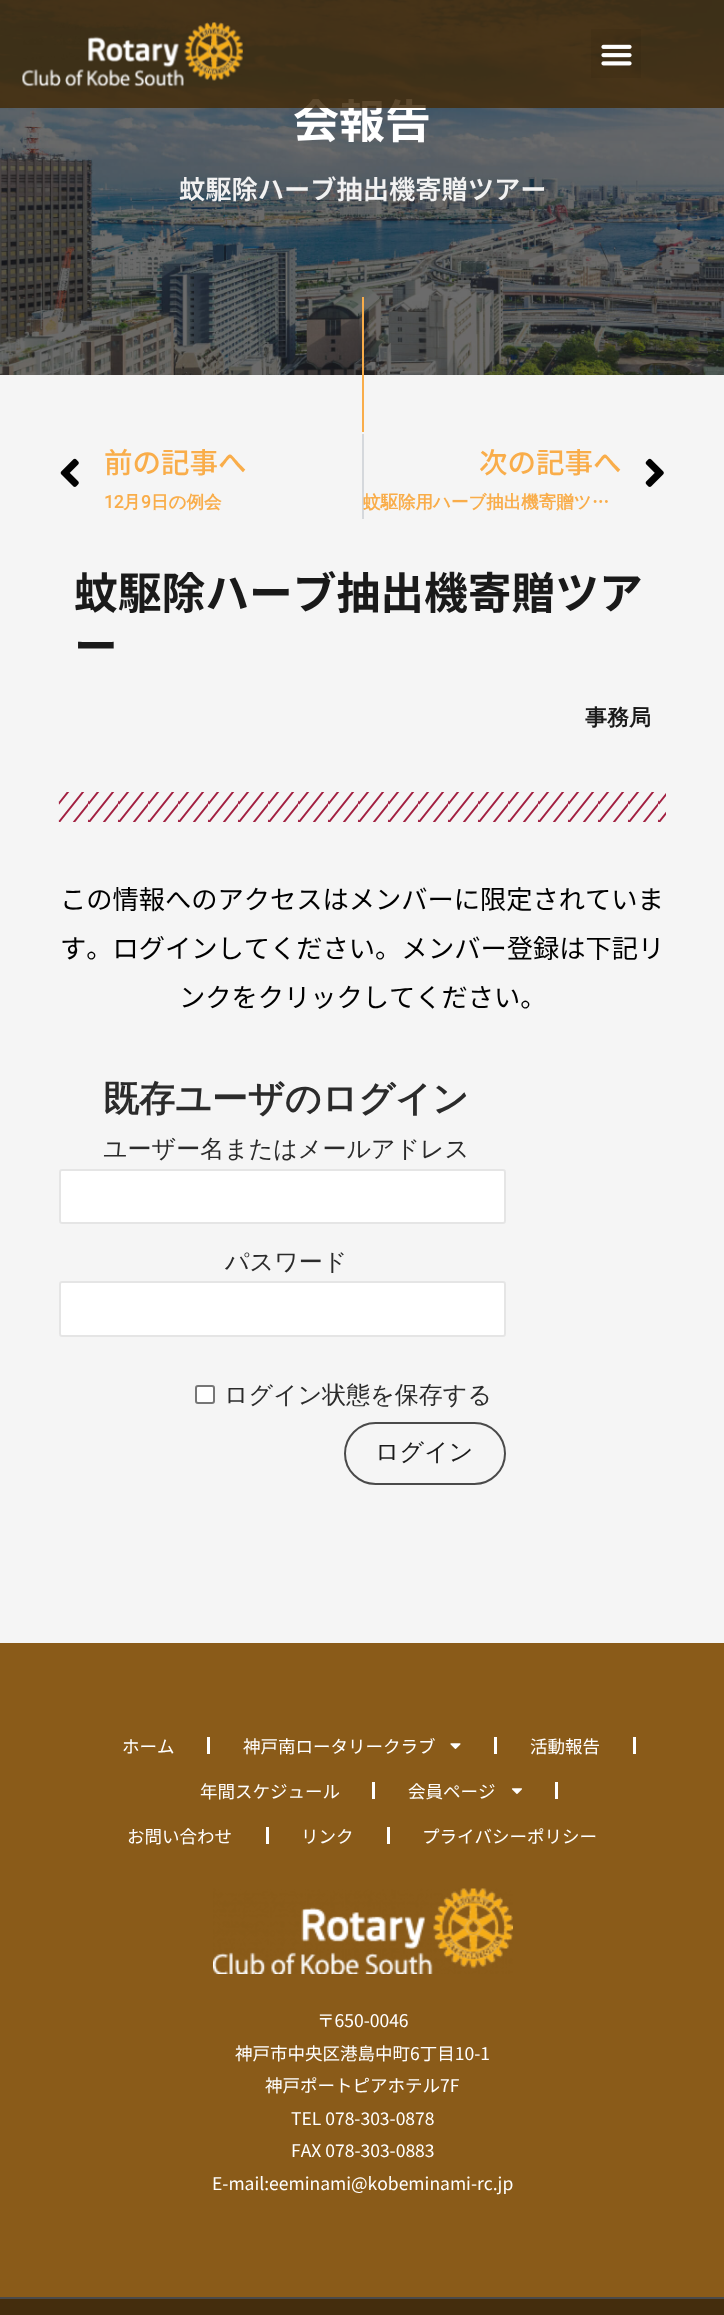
<svg xmlns="http://www.w3.org/2000/svg" width="724" height="2315" viewBox="0 0 724 2315">
  <style>*{font-kerning:none!important;font-variant-ligatures:none!important}</style>
  <rect width="100%" height="100%" fill="#f5f5f5"/>
  <image x="0" y="0" width="724" height="375" href="img/3.png"/>
  <path d="M362 297h2v135H362z" fill="#f9ad4a"/>
  <image x="60" y="458" width="19" height="29" href="img/4.png"/>
  <path d="M362 434h2v85H362z" fill="#d5d8dc"/>
  <image x="645" y="458" width="19" height="29" href="img/5.png"/>
  <image x="58" y="792" width="608" height="30" href="img/6.png"/>
  <rect x="59" y="1169" width="447" height="55" rx="3" fill="#fff"/>
  <rect x="60" y="1170" width="445" height="53" rx="2" fill="none" stroke="#0000001a" stroke-width="2"/>
  <rect x="59" y="1281" width="447" height="56" rx="3" fill="#fff"/>
  <rect x="60" y="1282" width="445" height="54" rx="2" fill="none" stroke="#0000001a" stroke-width="2"/>
  <rect x="196" y="1386" width="18" height="17" rx="2" fill="#fff" stroke="#767676" stroke-width="2"/>
  <rect x="345" y="1423" width="160" height="61" rx="30.5" fill="none" stroke="#4a4a4a" stroke-width="2"/>
  <path d="M0 1643h724v654H0z" fill="#8a5b19"/>
  <path d="M207 1737h3v17H207z" fill="#fff"/>
  <image x="450" y="1743" width="11" height="6" href="img/7.png"/>
  <path d="M494 1737h3v17H494z" fill="#fff"/>
  <path d="M633 1737h3v17H633z" fill="#fff"/>
  <path d="M372 1782h3v17H372z" fill="#fff"/>
  <image x="511" y="1788" width="11" height="6" href="img/8.png"/>
  <path d="M555 1782h3v17H555z" fill="#fff"/>
  <path d="M266 1827h3v17H266z" fill="#fff"/>
  <path d="M387 1827h3v17H387z" fill="#fff"/>
  <image x="213" y="1888" width="300" height="86" href="img/9.png"/>
  <path d="M0 2299h724v16H0z" fill="#442d0d"/>
  <path d="M0 2297h724v2H0z" fill="#4a4a4a"/>
  <text x="293" y="138" font-family="Noto Sans JP" font-size="46" font-weight="bold" fill="#fff">会報告</text>
  <path d="M0 0h724v108H0z" fill="#442d0dde"/>
  <path d="M591 29h50v49H591z" fill="#0000000d"/>
  <image x="601" y="44" width="31" height="22" href="img/2.png"/>
  <image x="22" y="22" width="221" height="65" href="img/1.png"/>
  <text x="179" y="199" font-family="Noto Sans JP" font-size="26.25" font-weight="600" fill="#f2f2f2">蚊駆除ハーブ抽出機寄贈ツアー</text>
  <text x="104" y="473" font-family="Noto Sans JP" font-size="28.5" font-weight="500" fill="#f9ad4a">前の記事へ</text>
  <text x="104" y="508" font-family="Roboto" font-size="17.5" font-weight="bold" fill="#f9ad4a">12</text>
  <text x="123" y="508" font-family="WenQuanYi Zen Hei" font-size="17.5" font-weight="bold" fill="#f9ad4a">月</text>
  <text x="141" y="508" font-family="Roboto" font-size="17.5" font-weight="bold" fill="#f9ad4a">9</text>
  <text x="151" y="508" font-family="WenQuanYi Zen Hei" font-size="17.5" font-weight="bold" fill="#f9ad4a">日の例会</text>
  <text x="479" y="473" font-family="Noto Sans JP" font-size="28.5" font-weight="500" fill="#f9ad4a">次の記事へ</text>
  <text x="363" y="508" font-family="WenQuanYi Zen Hei" font-size="17.5" font-weight="bold" fill="#f9ad4a">蚊駆除用ハーブ抽出機寄贈ツ…</text>
  <g font-family="Noto Sans JP" font-size="43.75" font-weight="bold" fill="#1a1a1a">
    <text x="74" y="609">蚊駆除ハーブ抽出機寄贈ツア</text>
    <text x="74" y="662">ー</text>
  </g>
  <text x="585" y="725" font-family="WenQuanYi Zen Hei" font-size="22" font-weight="bold" fill="#1a1a1a">事務局</text>
  <g font-family="Noto Sans JP" font-size="26.25" fill="#000">
    <text x="60" y="909">この情報へのアクセスはメンバーに限定されていま</text>
    <text x="60" y="958">す。ログインしてください。メ</text>
    <text x="428" y="958">ンバー登録は下記リ</text>
    <text x="179" y="1007">ンクをクリックしてください。</text>
  </g>
  <text x="103" y="1111" font-family="WenQuanYi Zen Hei" font-size="36" font-weight="bold" fill="#2b2b2b">既存ユーザのログイン</text>
  <g font-family="WenQuanYi Zen Hei" font-size="24" font-weight="500" fill="#2b2b2b">
    <text x="103" y="1157">ユーザー名またはメールアドレス</text>
    <text x="225" y="1270">パスワード</text>
    <text x="224" y="1403">ログイン状態を保存する</text>
  </g>
  <text x="375" y="1460" font-family="WenQuanYi Zen Hei" font-size="24" font-weight="500" fill="#1a1a1a">ログイン</text>
  <g font-family="Noto Sans JP" font-size="17.5" fill="#fff">
    <text x="122" y="1753">ホーム</text>
    <text x="243" y="1753">神戸南ロータリークラブ</text>
    <text x="530" y="1753">活動報告</text>
    <text x="200" y="1798">年間スケジュール</text>
    <text x="408" y="1798">会員ページ</text>
    <text x="127" y="1843">お問い合わせ</text>
    <text x="301" y="1843">リンク</text>
    <text x="422" y="1843">プライバシーポリシー</text>
    <text x="317" y="2027">〒650-0046</text>
    <text x="235" y="2060">神戸市中央区港島中町6丁目10-1</text>
    <text x="265" y="2092">神戸ポートピアホテル7F</text>
    <text x="291" y="2125">TEL 078-303-0878</text>
    <text x="291" y="2157">FAX 078-303-0883</text>
    <text x="212" y="2190">E-mail:eeminami@kobeminami-rc.jp</text>
  </g>
</svg>
